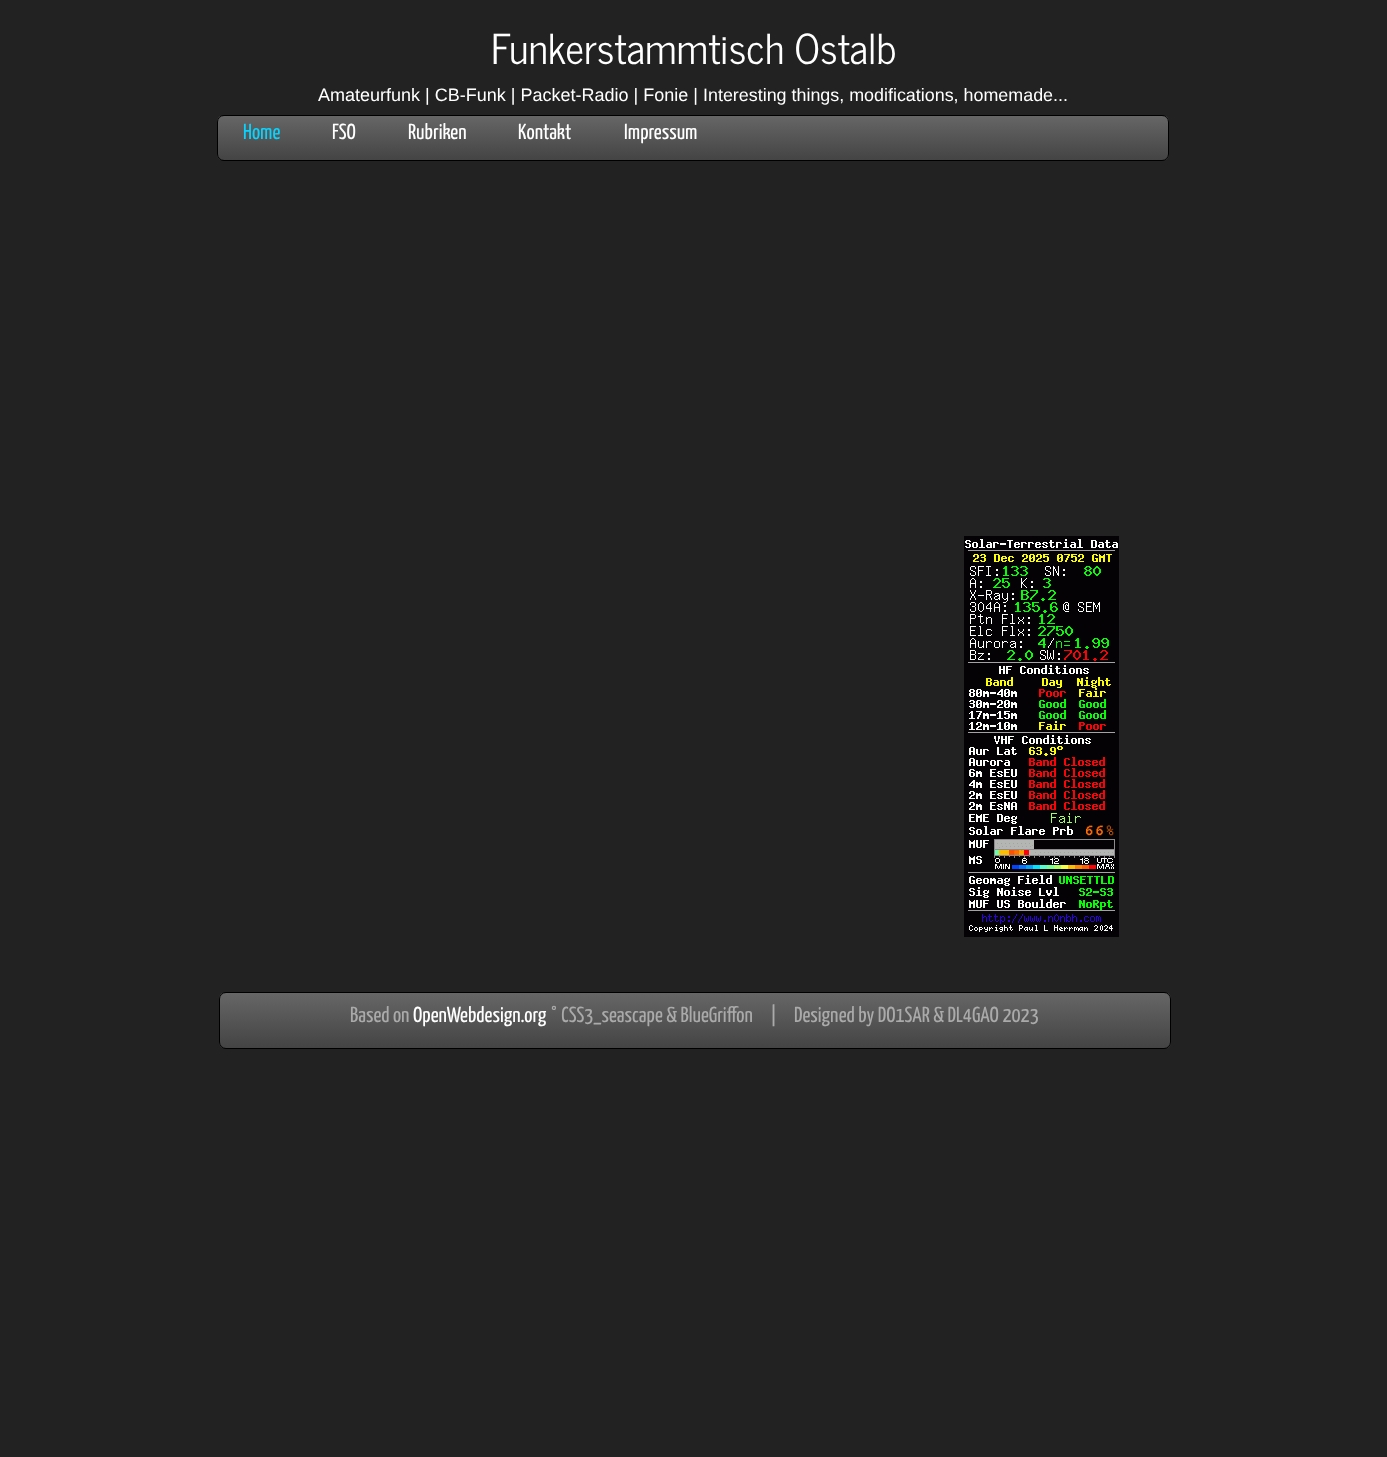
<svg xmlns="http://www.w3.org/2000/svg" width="1387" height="1457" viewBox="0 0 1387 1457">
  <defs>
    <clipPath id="clip1"><rect x="217" y="115" width="952" height="46" rx="7"/></clipPath>
    <linearGradient id="g1" gradientUnits="userSpaceOnUse" x1="693" y1="116" x2="693" y2="160"><stop offset="0" stop-color="#666"/><stop offset="1" stop-color="#444"/></linearGradient>
    <clipPath id="clip2"><rect x="219" y="992" width="952" height="57" rx="7"/></clipPath>
    <linearGradient id="g2" gradientUnits="userSpaceOnUse" x1="695" y1="993" x2="695" y2="1048"><stop offset="0" stop-color="#666"/><stop offset="1" stop-color="#444"/></linearGradient>
  </defs>
  <rect width="100%" height="100%" fill="#222"/>
  <g clip-path="url(#clip1)">
    <path d="M217 116h952v44H217z" fill="url(#g1)"/>
  </g>
  <rect x="217.5" y="115.5" width="951" height="45" rx="6.5" fill="none" stroke="#000"/>
  <image x="964" y="536" width="155" height="401" href="img/1.png"/>
  <g clip-path="url(#clip2)">
    <path d="M219 993h952v55H219z" fill="url(#g2)"/>
  </g>
  <rect x="219.5" y="992.5" width="951" height="56" rx="6.5" fill="none" stroke="#000"/>
  <text x="491" y="64" font-family="News Cycle" font-size="41" fill="#fff">Funkerstammtisch Ostalb</text>
  <text x="318" y="101" font-family="Liberation Sans" font-size="18" fill="#fff">Amateurfunk | CB-Funk | Packet-Radio | Fonie |</text>
  <text x="703" y="101" font-family="Liberation Sans" font-size="17.9" fill="#fff">Interesting things, modifications, homemade...</text>
  <text x="243" y="139" font-family="Yanone Kaffeesatz" font-size="21.75" fill="#09d4ff">Home</text>
  <g font-family="Yanone Kaffeesatz" font-size="21.75" fill="#fff">
    <text x="332" y="139">FSO</text>
    <text x="408" y="139">Rubriken</text>
    <text x="518" y="139">Kontakt</text>
    <text x="624" y="139">Impressum</text>
  </g>
  <text x="350" y="1022" font-family="Yanone Kaffeesatz" font-size="21.75" fill="#aaa">Based on</text>
  <text x="413" y="1022" font-family="Yanone Kaffeesatz" font-size="21.75" fill="#fff">OpenWebdesign.org</text>
  <g font-family="Yanone Kaffeesatz" font-size="21.75" fill="#aaa">
    <text x="550" y="1022" xml:space="preserve">° CSS3_seascape &amp; BlueGriffon     |</text>
    <text x="794" y="1022">Designed by DO1SAR &amp; DL4GAO 2023</text>
  </g>
</svg>
